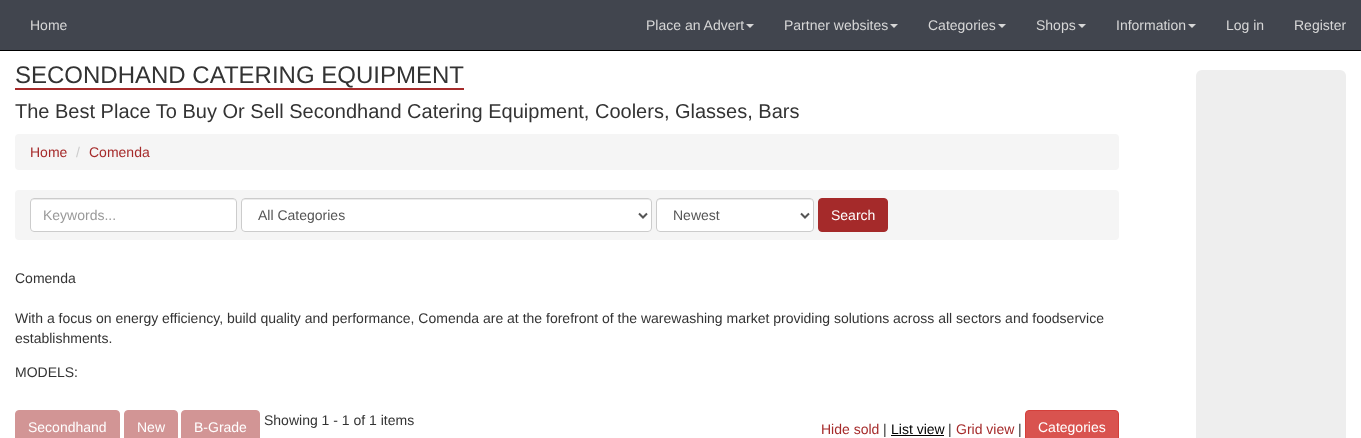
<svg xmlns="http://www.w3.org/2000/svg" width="1361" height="438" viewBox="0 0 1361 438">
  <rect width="100%" height="100%" fill="#fff"/>
  <path d="M0 0h1361v50H0z" fill="#41454e"/>
  <path d="M0 50h1361v1H0z" fill="#000"/>
  <path d="M746 24H754L750 28Z" fill="#d7d7d7"/>
  <path d="M890 24H898L894 28Z" fill="#d7d7d7"/>
  <path d="M998 24H1006L1002 28Z" fill="#d7d7d7"/>
  <path d="M1078 24H1086L1082 28Z" fill="#d7d7d7"/>
  <path d="M1188 24H1196L1192 28Z" fill="#d7d7d7"/>
  <path d="M15 88h449v2H15z" fill="#a52a2a"/>
  <rect x="15" y="134" width="1104" height="36" rx="4" fill="#f5f5f5"/>
  <rect x="15" y="190" width="1104" height="50" rx="4" fill="#f5f5f5"/>
  <rect x="30" y="198" width="207" height="34" rx="4" fill="#fff"/>
  <path d="M34 200H233C235 200 236 201 236 203C236 201 235 199 233 199H34C32 199 31 201 31 203C31 201 32 200 34 200Z" fill="#ececec"/>
  <rect x="30.5" y="198.5" width="206" height="33" rx="3.5" fill="none" stroke="#ccc"/>
  <rect x="241" y="198" width="411" height="34" rx="4" fill="#fff"/>
  <path d="M245 200H648C650 200 651 201 651 203C651 201 650 199 648 199H245C243 199 242 201 242 203C242 201 243 200 245 200Z" fill="#ececec"/>
  <rect x="241.5" y="198.5" width="410" height="33" rx="3.5" fill="none" stroke="#ccc"/>
  <path d="M639 213.5L643 217.5L647 213.5" fill="none" stroke="#555" stroke-width="2"/>
  <rect x="656" y="198" width="158" height="34" rx="4" fill="#fff"/>
  <path d="M660 200H810C812 200 813 201 813 203C813 201 812 199 810 199H659C657 199 657 201 657 203C657 201 658 200 660 200Z" fill="#ececec"/>
  <rect x="656.5" y="198.5" width="157" height="33" rx="3.5" fill="none" stroke="#ccc"/>
  <path d="M801 213.5L805 217.5L809 213.5" fill="none" stroke="#555" stroke-width="2"/>
  <rect x="818.5" y="198.5" width="69" height="33" rx="3.5" fill="#a52a2a" stroke="#a52a2a"/>
  <rect x="15.5" y="410.5" width="104" height="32" rx="3.5" fill="#d29595" stroke="#d29595"/>
  <rect x="124.5" y="410.5" width="53" height="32" rx="3.5" fill="#d29595" stroke="#d29595"/>
  <rect x="181.5" y="410.5" width="78" height="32" rx="3.5" fill="#d29595" stroke="#d29595"/>
  <path d="M891 435h53v1H891z" fill="#000"/>
  <rect x="1025.5" y="410.5" width="93" height="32" rx="3.5" fill="#d9534f" stroke="#d43f3a"/>
  <rect x="1196" y="70" width="150" height="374" rx="6" fill="#eee"/>
  <g font-family="Liberation Sans" font-size="14" fill="#d7d7d7">
    <text x="30" y="30">Home</text>
    <text x="646" y="30">Place an Advert</text>
    <text x="784" y="30">Partner websites</text>
    <text x="928" y="30">Categories</text>
    <text x="1036" y="30">Shops</text>
    <text x="1116" y="30">Information</text>
    <text x="1226" y="30">Log in</text>
    <text x="1294" y="30">Register</text>
  </g>
  <text x="15" y="83" font-family="Liberation Sans" font-size="24" fill="#333">SECONDHAND CATERING EQUIPMENT</text>
  <text x="15" y="118" font-family="Liberation Sans" font-size="20" fill="#333">The Best Place To Buy Or Sell Secondhand Catering Equipment, Coolers, Glasses, Bars</text>
  <text x="30" y="157" font-family="Liberation Sans" font-size="14" fill="#a52a2a">Home</text>
  <text x="76" y="157" font-family="Liberation Sans" font-size="14" fill="#ccc">/</text>
  <text x="89" y="157" font-family="Liberation Sans" font-size="14" fill="#a52a2a">Comenda</text>
  <text x="43" y="220" font-family="Liberation Sans" font-size="14" fill="#999">Keywords...</text>
  <g font-family="Liberation Sans" font-size="14" fill="#555">
    <text x="258" y="220">All Categories</text>
    <text x="673" y="220">Newest</text>
  </g>
  <text x="831" y="220" font-family="Liberation Sans" font-size="14" fill="#fff">Search</text>
  <g font-family="Liberation Sans" font-size="14" fill="#333">
    <text x="15" y="283">Comenda</text>
    <text x="15" y="323">With a focus on energy efficiency, build quality and performance, Comenda are at the forefront of the warewashing market providing solutions across all sectors and foodservice</text>
    <text x="15" y="343">establishments.</text>
    <text x="15" y="377">MODELS:</text>
  </g>
  <g font-family="Liberation Sans" font-size="14" fill="#fff">
    <text x="28" y="432">Secondhand</text>
    <text x="137" y="432">New</text>
    <text x="194" y="432">B-Grade</text>
  </g>
  <text x="264" y="425" font-family="Liberation Sans" font-size="14" fill="#333">Showing 1 - 1 of 1 items</text>
  <text x="821" y="434" font-family="Liberation Sans" font-size="14" fill="#a52a2a">Hide sold</text>
  <text x="883" y="434" font-family="Liberation Sans" font-size="14" fill="#333">|</text>
  <text x="891" y="434" font-family="Liberation Sans" font-size="14" fill="#000">List view</text>
  <text x="948" y="434" font-family="Liberation Sans" font-size="14" fill="#333">|</text>
  <text x="956" y="434" font-family="Liberation Sans" font-size="14" fill="#a52a2a">Grid view</text>
  <text x="1018" y="434" font-family="Liberation Sans" font-size="14" fill="#333">|</text>
  <text x="1038" y="432" font-family="Liberation Sans" font-size="14" fill="#fff">Categories</text>
</svg>
